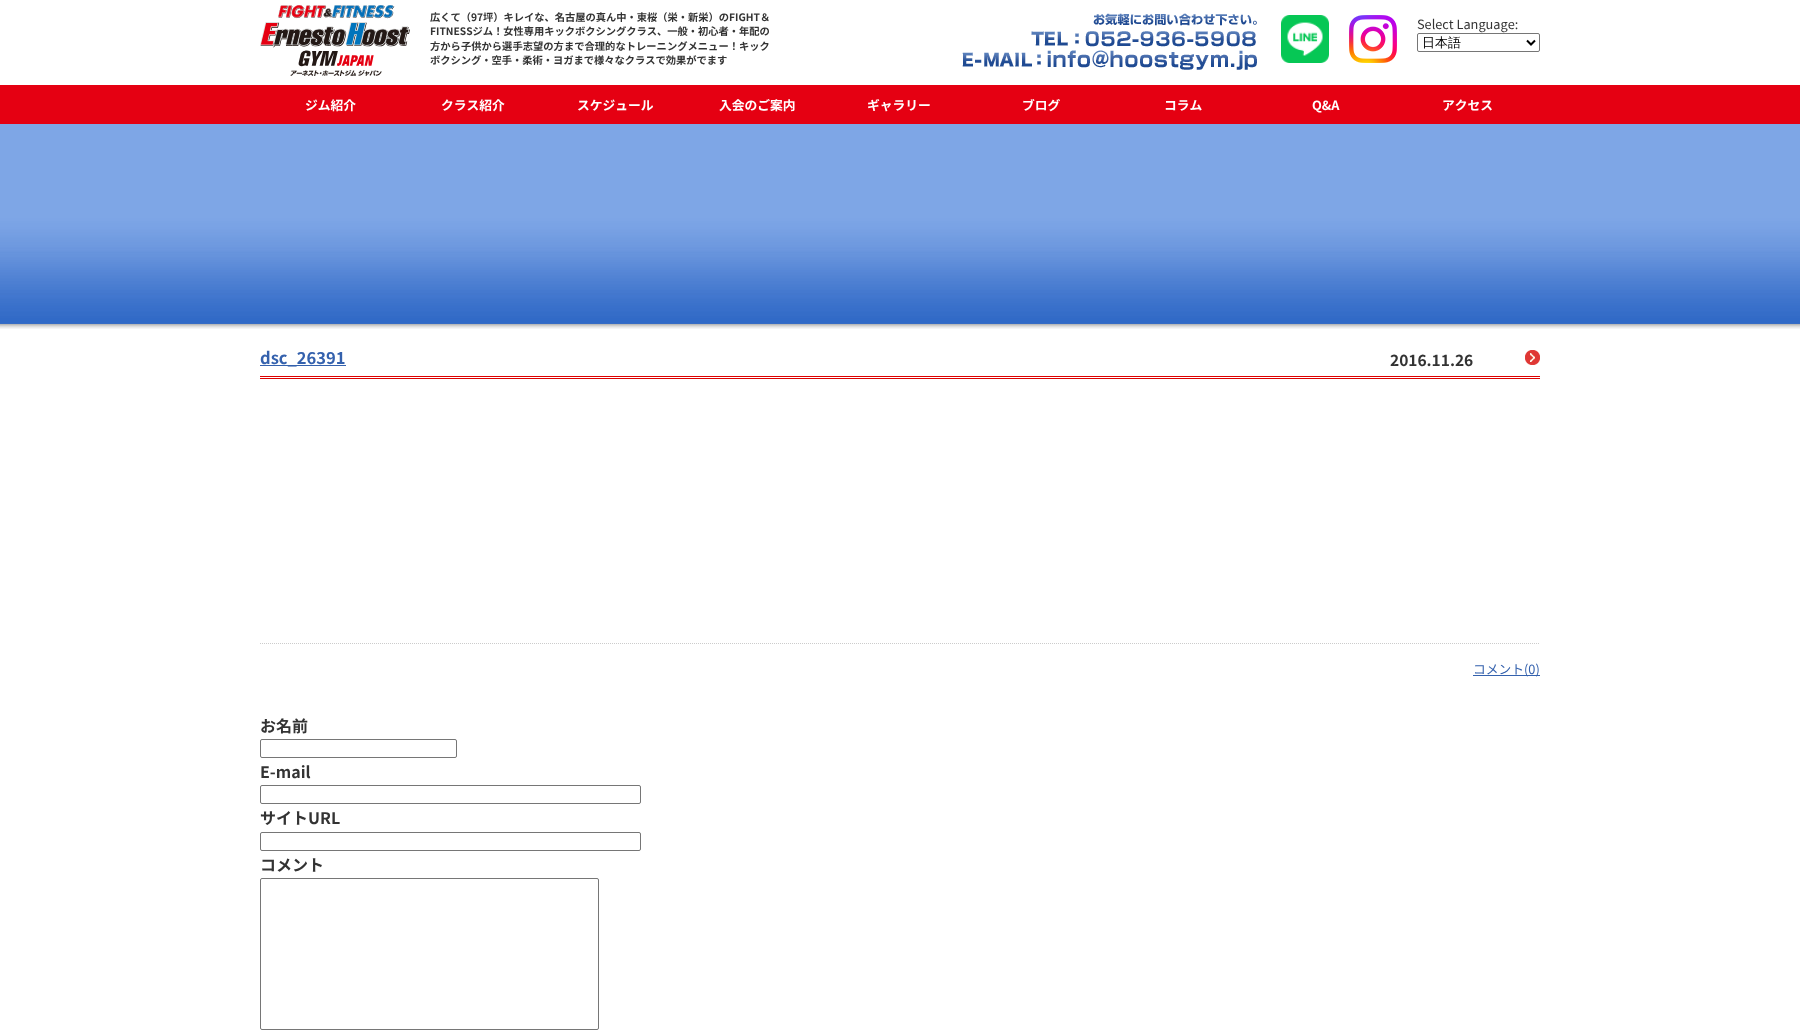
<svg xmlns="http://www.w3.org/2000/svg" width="1800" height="1031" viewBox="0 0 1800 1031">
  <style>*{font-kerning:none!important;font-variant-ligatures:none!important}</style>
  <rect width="100%" height="100%" fill="#fff"/>
  <image x="260" y="5" width="150" height="71" href="img/1.png"/>
  <image x="962" y="13" width="295" height="57" href="img/2.png"/>
  <image x="1281" y="15" width="48" height="48" href="img/3.png"/>
  <image x="1349" y="15" width="48" height="48" href="img/4.png"/>
  <rect x="1417.5" y="33.5" width="122" height="18" rx="1.5" fill="none" stroke="#767676"/>
  <path d="M1527 40.5L1531 44.5L1535 40.5" fill="none" stroke="#000" stroke-width="2"/>
  <path d="M0 85h1800v39H0z" fill="#e50012"/>
  <image x="0" y="124" width="1800" height="205" href="img/5.png"/>
  <path d="M260 376h1280v1H260z" fill="#d00"/>
  <path d="M260 378h1280v1H260z" fill="#d00"/>
  <path d="M260 365h86v1H260z" fill="#3461ad"/>
  <image x="1525" y="350" width="15" height="15" href="img/6.png"/>
  <path d="M260 643.5H1540" fill="none" stroke="#ccc" stroke-dasharray="1 1"/>
  <path d="M1473 675h67v1H1473z" fill="#3461ad"/>
  <rect x="260.5" y="739.5" width="196" height="18" rx="1.5" fill="none" stroke="#767676"/>
  <rect x="260.5" y="785.5" width="380" height="18" rx="1.5" fill="none" stroke="#767676"/>
  <rect x="260.5" y="832.5" width="380" height="18" rx="1.5" fill="none" stroke="#767676"/>
  <rect x="260.5" y="878.5" width="338" height="151" rx="1.5" fill="none" stroke="#767676"/>
  <g font-family="Noto Sans JP" font-size="10.25" font-weight="bold" fill="#333">
    <text x="430" y="21">広くて（97坪）キレイな、名古屋の真ん中・東桜（栄・新栄）のFIGHT＆</text>
    <text x="430" y="35">FITNESSジム！女性専用キックボクシングクラス、一般・初心者・年配の</text>
  </g>
  <text x="430" y="50" font-family="Noto Sans JP" font-size="10.25" font-weight="bold" letter-spacing="0.05" fill="#333">方から子供から選手志望の方まで合理的なトレーニングメニュー！キック</text>
  <text x="430" y="64" font-family="Noto Sans JP" font-size="10.25" font-weight="bold" fill="#333">ボクシング・空手・柔術・ヨガまで様々なクラスで効果がでます</text>
  <text x="1417" y="29" font-family="Noto Sans JP" font-size="12.75" fill="#333">Select Language:</text>
  <text x="1422" y="47" font-family="WenQuanYi Zen Hei" font-size="13" font-weight="500" fill="#000">日本語</text>
  <g font-family="Noto Sans JP" font-size="12.75" font-weight="bold" fill="#fff">
    <text x="305" y="110">ジム紹介</text>
    <text x="441" y="110">クラス紹介</text>
    <text x="577" y="110">スケジュール</text>
    <text x="719" y="110">入会のご案内</text>
    <text x="867" y="110">ギャラリー</text>
    <text x="1022" y="110">ブログ</text>
    <text x="1164" y="110">コラム</text>
    <text x="1312" y="110">Q&amp;A</text>
    <text x="1442" y="110">アクセス</text>
  </g>
  <text x="260" y="364" font-family="Noto Sans JP" font-size="16.5" font-weight="bold" fill="#3461ad">dsc_26391</text>
  <text x="1390" y="366" font-family="Noto Sans JP" font-size="15.5" font-weight="bold" fill="#333">2016.11.26</text>
  <text x="1473" y="674" font-family="Noto Sans JP" font-size="12.75" fill="#3461ad">コメント(0)</text>
  <g font-family="Noto Sans JP" font-size="16" font-weight="bold" fill="#333">
    <text x="260" y="732">お名前</text>
    <text x="260" y="778">E-mail</text>
    <text x="260" y="824">サイトURL</text>
    <text x="260" y="871">コメント</text>
  </g>
</svg>
